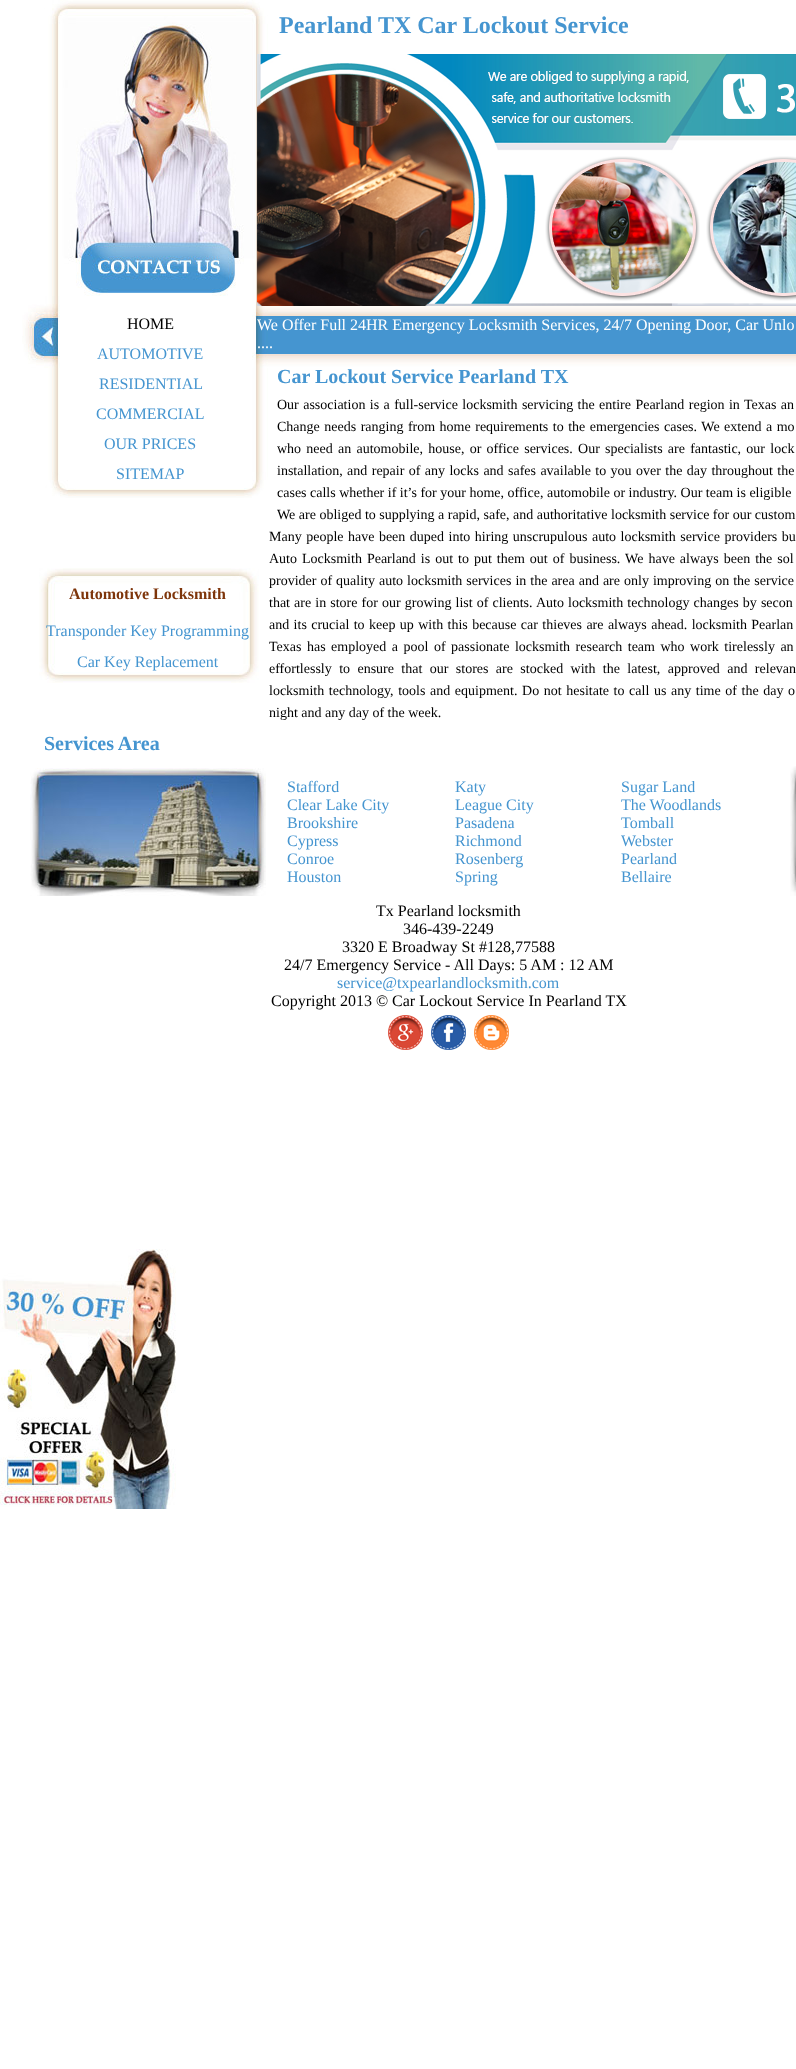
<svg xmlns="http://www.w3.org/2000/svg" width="796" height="2069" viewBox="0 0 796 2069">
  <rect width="100%" height="100%" fill="#fff"/>
  <image x="22" y="0" width="774" height="498" href="img/1.png"/>
  <image x="257" y="54" width="539" height="252" href="img/2.png"/>
  <image x="39" y="568" width="220" height="115" href="img/3.png"/>
  <image x="30" y="768" width="236" height="128" href="img/4.png"/>
  <image x="790" y="766" width="6" height="130" href="img/5.png"/>
  <image x="388" y="1015" width="35" height="35" href="img/6.png"/>
  <image x="431" y="1015" width="35" height="35" href="img/7.png"/>
  <image x="474" y="1015" width="35" height="35" href="img/8.png"/>
  <image x="0" y="1249" width="176" height="260" href="img/9.png"/>
  <text x="279" y="33" font-family="Liberation Serif" font-size="24" font-weight="bold" fill="#4595d0">Pearland TX Car Lockout Service</text>
  <text x="127" y="329" font-family="Liberation Serif" font-size="16" fill="#000">HOME</text>
  <g font-family="Liberation Serif" font-size="16" fill="#4595d0">
    <text x="97" y="359">AUTOMOTIVE</text>
    <text x="99" y="389">RESIDENTIAL</text>
    <text x="96" y="419">COMMERCIAL</text>
    <text x="104" y="449">OUR PRICES</text>
    <text x="116" y="479">SITEMAP</text>
  </g>
  <g font-family="Liberation Serif" font-size="16" fill="#fff">
    <text x="257" y="330">We Offer Full 24HR Emergency Locksmith Services, 24/7 Opening Door, Car Unlo</text>
    <text x="257" y="348">....</text>
  </g>
  <text x="277" y="383" font-family="Liberation Serif" font-size="20" font-weight="bold" fill="#4595d0">Car Lockout Service Pearland TX</text>
  <g font-family="Liberation Serif" font-size="14" fill="#000">
    <text x="277" y="409" word-spacing="0.9">Our association is a full-service locksmith servicing the entire Pearland region in Texas an</text>
    <text x="277" y="431" word-spacing="1">Change needs ranging from home requirements to the emergencies cases. We extend a mo</text>
    <text x="277" y="453" word-spacing="1.75">who need an automobile, house, or office services. Our specialists are fantastic, our lock</text>
    <text x="277" y="475" word-spacing="0.9">installation, and repair of any locks and safes available to you over the day throughout the</text>
    <text x="277" y="497">cases calls whether if it’s for your home, office, automobile or industry. Our team is eligible</text>
    <text x="277" y="519">We are obliged to supplying a rapid, safe, and authoritative locksmith service for our custom</text>
  </g>
  <text x="69" y="599" font-family="Liberation Serif" font-size="16" font-weight="bold" fill="#7e350a">Automotive Locksmith</text>
  <g font-family="Liberation Serif" font-size="16" fill="#4595d0">
    <text x="46" y="636">Transponder Key Programming</text>
    <text x="77" y="667">Car Key Replacement</text>
  </g>
  <g font-family="Liberation Serif" font-size="14" fill="#000">
    <text x="269" y="541" word-spacing="1">Many people have been duped into hiring unscrupulous auto locksmith service providers bu</text>
    <text x="269" y="563" word-spacing="1.5">Auto Locksmith Pearland is out to put them out of business. We have always been the sol</text>
    <text x="269" y="585" word-spacing="0.5">provider of quality auto locksmith services in the area and are only improving on the service</text>
    <text x="269" y="607" word-spacing="0.6">that are in store for our growing list of clients. Auto locksmith technology changes by secon</text>
    <text x="269" y="629" word-spacing="0.9">and its crucial to keep up with this because car thieves are always ahead. locksmith Pearlan</text>
    <text x="269" y="651" word-spacing="2">Texas has employed a pool of passionate locksmith research team who work tirelessly an</text>
    <text x="269" y="673" word-spacing="3.9">effortlessly to ensure that our stores are stocked with the latest, approved and relevan</text>
    <text x="269" y="695" word-spacing="1.1">locksmith technology, tools and equipment. Do not hesitate to call us any time of the day o</text>
    <text x="269" y="717">night and any day of the week.</text>
  </g>
  <text x="44" y="750" font-family="Liberation Serif" font-size="20" font-weight="bold" fill="#4595d0">Services Area</text>
  <g font-family="Liberation Serif" font-size="16" fill="#4595d0">
    <text x="287" y="792">Stafford</text>
    <text x="287" y="810">Clear Lake City</text>
    <text x="287" y="828">Brookshire</text>
    <text x="287" y="846">Cypress</text>
    <text x="287" y="864">Conroe</text>
    <text x="287" y="882">Houston</text>
    <text x="455" y="792">Katy</text>
    <text x="455" y="810">League City</text>
    <text x="455" y="828">Pasadena</text>
    <text x="455" y="846">Richmond</text>
    <text x="455" y="864">Rosenberg</text>
    <text x="455" y="882">Spring</text>
    <text x="621" y="792">Sugar Land</text>
    <text x="621" y="810">The Woodlands</text>
    <text x="621" y="828">Tomball</text>
    <text x="621" y="846">Webster</text>
    <text x="621" y="864">Pearland</text>
    <text x="621" y="882">Bellaire</text>
  </g>
  <g font-family="Liberation Serif" font-size="16" fill="#000">
    <text x="376" y="916">Tx Pearland locksmith</text>
    <text x="403" y="934">346-439-2249</text>
    <text x="342" y="952">3320 E Broadway St #128,77588</text>
    <text x="284" y="970">24/7 Emergency Service - All Days: 5 AM : 12 AM</text>
  </g>
  <text x="337" y="988" font-family="Liberation Serif" font-size="16" fill="#4595d0">service@txpearlandlocksmith.com</text>
  <text x="271" y="1006" font-family="Liberation Serif" font-size="16" fill="#000">Copyright 2013 © Car Lockout Service In Pearland TX</text>
</svg>
